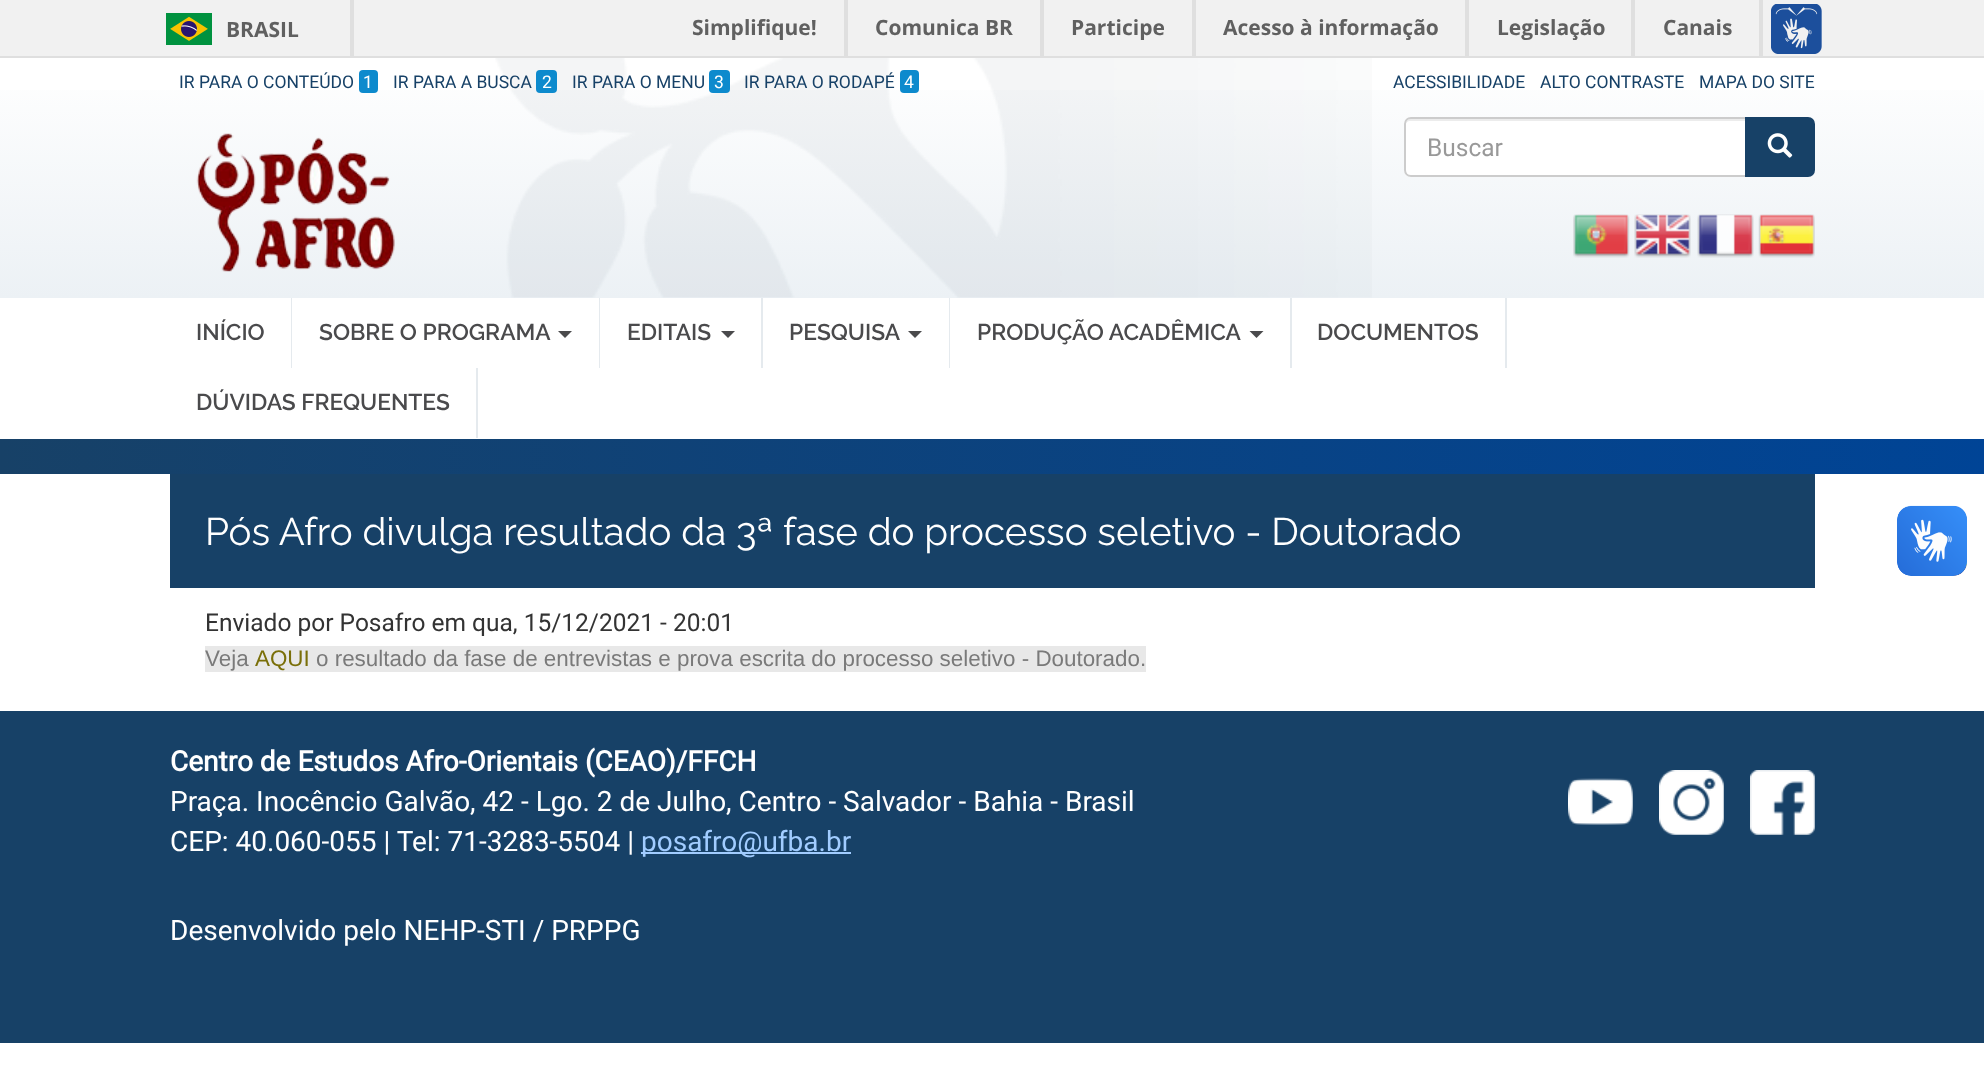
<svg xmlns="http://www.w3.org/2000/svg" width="1984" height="1081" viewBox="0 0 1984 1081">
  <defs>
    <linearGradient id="g1" gradientUnits="userSpaceOnUse" x1="992" y1="58" x2="992" y2="298"><stop offset="0" stop-color="#fff"/><stop offset="1" stop-color="#ecf1f5"/></linearGradient>
    <linearGradient id="g2" gradientUnits="userSpaceOnUse" x1="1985" y1="457" x2="0" y2="457"><stop offset="0" stop-color="#004496"/><stop offset="1" stop-color="#174167"/></linearGradient>
  </defs>
  <rect width="100%" height="100%" fill="#fff"/>
  <path d="M0 0h1984v56H0z" fill="#f1f1f1"/>
  <path d="M0 56h1984v2H0z" fill="#dfdfdf"/>
  <path d="M350 0h4v56H350z" fill="#dfdfdf"/>
  <image x="166" y="13" width="46" height="32" href="img/1.png"/>
  <path d="M844 0h4v56H844z" fill="#dfdfdf"/>
  <path d="M1040 0h4v56H1040z" fill="#dfdfdf"/>
  <path d="M1192 0h4v56H1192z" fill="#dfdfdf"/>
  <path d="M1465 0h4v56H1465z" fill="#dfdfdf"/>
  <path d="M1631 0h4v56H1631z" fill="#dfdfdf"/>
  <path d="M1759 0h4v56H1759z" fill="#dfdfdf"/>
  <image x="1771" y="4" width="51" height="50" href="img/2.png"/>
  <path d="M0 90h1984v208H0z" fill="url(#g1)"/>
  <image x="495" y="58" width="877" height="240" href="img/3.png"/>
  <rect x="359" y="70" width="19" height="23" rx="4" fill="#0d8acd"/>
  <rect x="536" y="70" width="21" height="23" rx="4" fill="#0d8acd"/>
  <rect x="709" y="70" width="21" height="23" rx="4" fill="#0d8acd"/>
  <rect x="900" y="70" width="19" height="23" rx="4" fill="#0d8acd"/>
  <image x="196" y="133" width="199" height="139" href="img/4.png"/>
  <path d="M1411 117H1747V177H1411C1407 177 1404 174 1404 170V124C1404 120 1407 117 1411 117Z" fill="#fff"/>
  <path d="M1410 121H1745V119H1410C1406 119 1405 123 1405 126C1405 123 1408 121 1410 121Z" fill="#ececec"/>
  <path d="M1411 118H1746V176H1411C1407.5 176 1405 173.5 1405 170V124C1405 120.5 1407.5 118 1411 118Z" fill="none" stroke="#ccc" stroke-width="2"/>
  <path d="M1746 118H1808C1811.5 118 1814 120.5 1814 124V170C1814 173.5 1811.5 176 1808 176H1746Z" fill="#174167" stroke="#174167" stroke-width="2"/>
  <image x="1767" y="133" width="26" height="25" href="img/5.png"/>
  <image x="1573" y="214" width="57" height="44" href="img/6.png"/>
  <image x="1634" y="214" width="57" height="44" href="img/7.png"/>
  <image x="1697" y="214" width="57" height="44" href="img/8.png"/>
  <image x="1758" y="214" width="57" height="44" href="img/9.png"/>
  <path d="M291 298h1v70H291z" fill="#e5eaee"/>
  <path d="M599 298h1v70H599z" fill="#e5eaee"/>
  <path d="M558 331H572L565 338Z" fill="#4a4a4c"/>
  <path d="M761 298h2v70H761z" fill="#e5eaee"/>
  <path d="M721 331H735L728 338Z" fill="#4a4a4c"/>
  <path d="M949 298h1v70H949z" fill="#e5eaee"/>
  <path d="M908 331H922L915 338Z" fill="#4a4a4c"/>
  <path d="M1290 298h2v70H1290z" fill="#e5eaee"/>
  <path d="M1249.5 331H1263.5L1256.5 338Z" fill="#4a4a4c"/>
  <path d="M1505 298h2v70H1505z" fill="#e5eaee"/>
  <path d="M476 368h2v70H476z" fill="#e5eaee"/>
  <path d="M0 439h1984v35H0z" fill="url(#g2)"/>
  <path d="M170 474h1645v114H170z" fill="#174167"/>
  <path d="M205 646h941v26H205z" fill="#e8e8e8"/>
  <image x="1897" y="505" width="70" height="71" href="img/10.png"/>
  <image x="1897" y="506" width="70" height="70" href="img/11.png"/>
  <path d="M0 711h1984v332H0z" fill="#174167"/>
  <path d="M641 852h210v2H641z" fill="#a1ccff"/>
  <image x="1568" y="778" width="65" height="47" href="img/12.png"/>
  <image x="1659" y="770" width="65" height="65" href="img/13.png"/>
  <image x="1750" y="770" width="65" height="65" href="img/14.png"/>
  <g font-family="Open Sans" font-size="21" font-weight="bold" fill="#606060">
    <text x="226" y="37">BRASIL</text>
    <text x="692" y="35">Simplifique!</text>
    <text x="875" y="35">Comunica BR</text>
    <text x="1071" y="35">Participe</text>
    <text x="1223" y="35">Acesso à informação</text>
    <text x="1497" y="35">Legislação</text>
    <text x="1663" y="35">Canais</text>
  </g>
  <text x="179" y="88" font-family="Roboto" font-size="17.5" fill="#174167">IR PARA O CONTEÚDO</text>
  <text x="363" y="88" font-family="Roboto" font-size="17.5" fill="#fff">1</text>
  <text x="393" y="88" font-family="Roboto" font-size="17.5" fill="#174167">IR PARA A BUSCA</text>
  <text x="542" y="88" font-family="Roboto" font-size="17.5" fill="#fff">2</text>
  <text x="572" y="88" font-family="Roboto" font-size="17.5" fill="#174167">IR PARA O MENU</text>
  <text x="714" y="88" font-family="Roboto" font-size="17.5" fill="#fff">3</text>
  <text x="744" y="88" font-family="Roboto" font-size="17.5" fill="#174167">IR PARA O RODAPÉ</text>
  <text x="904" y="88" font-family="Roboto" font-size="17.5" fill="#fff">4</text>
  <g font-family="Roboto" font-size="17.5" fill="#174167">
    <text x="1393" y="88">ACESSIBILIDADE</text>
    <text x="1540" y="88">ALTO CONTRASTE</text>
    <text x="1699" y="88">MAPA DO SITE</text>
  </g>
  <text x="1427" y="156" font-family="Roboto" font-size="24.5" fill="#999">Buscar</text>
  <g font-family="Raleway" font-size="22.75" font-weight="600" fill="#4a4a4c">
    <text x="196" y="340">INÍCIO</text>
    <text x="319" y="340">SOBRE O PROGRAMA</text>
    <text x="627" y="340">EDITAIS</text>
    <text x="789" y="340">PESQUISA</text>
    <text x="977" y="340">PRODUÇÃO ACADÊMICA</text>
    <text x="1317" y="340">DOCUMENTOS</text>
    <text x="196" y="410">DÚVIDAS FREQUENTES</text>
  </g>
  <text x="205" y="545" font-family="Raleway" font-size="38.5" fill="#fff">Pós Afro divulga resultado da 3ª fase do processo seletivo - Doutorado</text>
  <text x="205" y="631" font-family="Roboto" font-size="24.5" fill="#333">Enviado por Posafro em qua, 15/12/2021 - 20:01</text>
  <text x="205" y="666" font-family="Liberation Sans" font-size="22.4" fill="#7a7a7a">Veja</text>
  <text x="255" y="666" font-family="Liberation Sans" font-size="22.4" fill="#7a6f09">AQUI</text>
  <text x="316" y="666" font-family="Liberation Sans" font-size="22.4" fill="#7a7a7a">o resultado da fase de entrevistas e prova escrita do processo seletivo - Doutorado.</text>
  <text x="170" y="771" font-family="Roboto" font-size="28" font-weight="bold" fill="#fff">Centro de Estudos Afro-Orientais (CEAO)/FFCH</text>
  <g font-family="Roboto" font-size="28" fill="#fff">
    <text x="170" y="811">Praça. Inocêncio Galvão, 42 - Lgo. 2 de Julho, Centro - Salvador - Bahia - Brasil</text>
    <text x="170" y="851">CEP: 40.060-055 | Tel: 71-3283-5504 |</text>
  </g>
  <text x="641" y="851" font-family="Roboto" font-size="28" fill="#a1ccff">posafro@ufba.br</text>
  <text x="170" y="940" font-family="Roboto" font-size="28" fill="#fff">Desenvolvido pelo NEHP-STI / PRPPG</text>
</svg>
